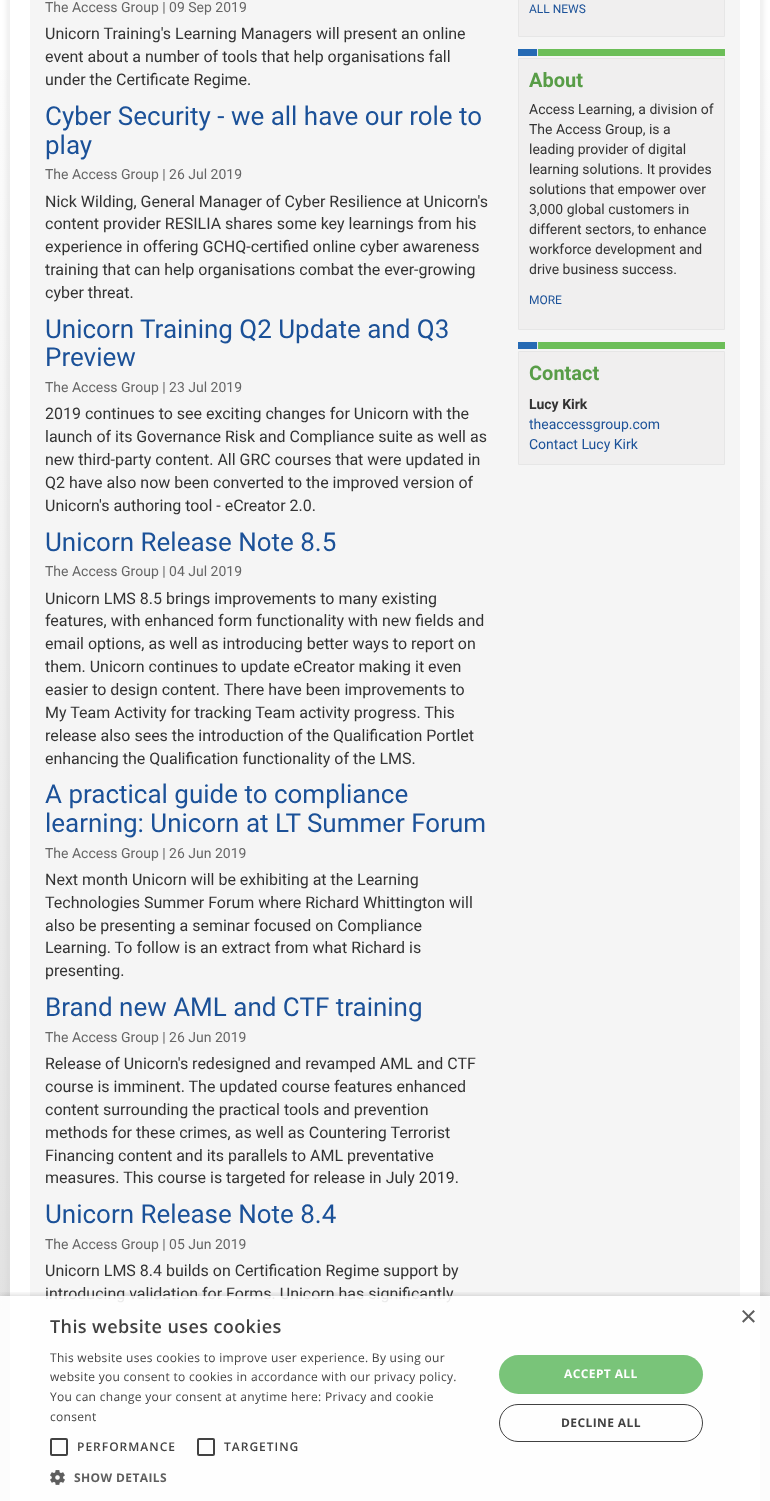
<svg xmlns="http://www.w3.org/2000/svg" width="770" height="1501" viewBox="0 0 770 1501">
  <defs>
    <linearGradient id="g1" gradientUnits="userSpaceOnUse" x1="385" y1="0" x2="385" y2="1501"><stop offset="0" stop-color="#fefefe"/><stop offset="1" stop-color="#dedede"/></linearGradient>
    <clipPath id="clip1"><path d="M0 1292h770v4H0z"/></clipPath>
  </defs>
  <rect width="100%" height="100%" fill="#fff"/>
  <path d="M0 70h770v1431H0z" fill="url(#g1)"/>
  <path d="M6 -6h758v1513H6z" fill="#cccccc4d" filter="blur(2px)"/>
  <path d="M20 -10h730v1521H20z" fill="#f5f5f5" stroke="#fff" stroke-width="20"/>
  <path d="M518.5 -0.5h206v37H518.5z" fill="#f0efef" stroke="#e6e6e6"/>
  <image x="518" y="49" width="207" height="7" href="img/1.png"/>
  <path d="M518.5 58.5h206v271H518.5z" fill="#f0efef" stroke="#e6e6e6"/>
  <image x="518" y="342" width="207" height="7" href="img/1.png"/>
  <path d="M518.5 351.5h206v113H518.5z" fill="#f0efef" stroke="#e6e6e6"/>
  <g clip-path="url(#clip1)">
    <path d="M1 1298h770v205H1z" fill="#00000052" filter="blur(4px)"/>
  </g>
  <text x="45" y="12" font-family="Roboto" font-size="14" fill="#666">The Access Group | 09 Sep 2019</text>
  <g font-family="Roboto" font-size="16" fill="#333">
    <text x="45" y="39">Unicorn Training's Learning Managers will present an online</text>
    <text x="45" y="62">event about a number of tools that help organisations fall</text>
    <text x="45" y="85">under the Certificate Regime.</text>
  </g>
  <g font-family="Roboto" font-size="26" fill="#1b5198">
    <text x="45" y="125">Cyber Security - we all have our role to</text>
    <text x="45" y="154">play</text>
  </g>
  <text x="45" y="179" font-family="Roboto" font-size="14" fill="#666">The Access Group | 26 Jul 2019</text>
  <g font-family="Roboto" font-size="16" fill="#333">
    <text x="45" y="207">Nick Wilding, General Manager of Cyber Resilience at Unicorn's</text>
    <text x="45" y="229">content provider RESILIA shares some key learnings from his</text>
    <text x="45" y="252">experience in offering GCHQ-certified online cyber awareness</text>
    <text x="45" y="275">training that can help organisations combat the ever-growing</text>
    <text x="45" y="298">cyber threat.</text>
  </g>
  <g font-family="Roboto" font-size="26" fill="#1b5198">
    <text x="45" y="338">Unicorn Training Q2 Update and Q3</text>
    <text x="45" y="366">Preview</text>
  </g>
  <text x="45" y="392" font-family="Roboto" font-size="14" fill="#666">The Access Group | 23 Jul 2019</text>
  <g font-family="Roboto" font-size="16" fill="#333">
    <text x="45" y="419">2019 continues to see exciting changes for Unicorn with the</text>
    <text x="45" y="442">launch of its Governance Risk and Compliance suite as well as</text>
    <text x="45" y="465">new third-party content. All GRC courses that were updated in</text>
    <text x="45" y="488">Q2 have also now been converted to the improved version of</text>
    <text x="45" y="511">Unicorn's authoring tool - eCreator 2.0.</text>
  </g>
  <text x="45" y="551" font-family="Roboto" font-size="26" fill="#1b5198">Unicorn Release Note 8.5</text>
  <text x="45" y="576" font-family="Roboto" font-size="14" fill="#666">The Access Group | 04 Jul 2019</text>
  <g font-family="Roboto" font-size="16" fill="#333">
    <text x="45" y="604">Unicorn LMS 8.5 brings improvements to many existing</text>
    <text x="45" y="626">features, with enhanced form functionality with new fields and</text>
    <text x="45" y="649">email options, as well as introducing better ways to report on</text>
    <text x="45" y="672">them. Unicorn continues to update eCreator making it even</text>
    <text x="45" y="695">easier to design content. There have been improvements to</text>
    <text x="45" y="718">My Team Activity for tracking Team activity progress. This</text>
    <text x="45" y="741">release also sees the introduction of the Qualification Portlet</text>
    <text x="45" y="764">enhancing the Qualification functionality of the LMS.</text>
  </g>
  <g font-family="Roboto" font-size="26" fill="#1b5198">
    <text x="45" y="803">A practical guide to compliance</text>
    <text x="45" y="832">learning: Unicorn at LT Summer Forum</text>
  </g>
  <text x="45" y="858" font-family="Roboto" font-size="14" fill="#666">The Access Group | 26 Jun 2019</text>
  <g font-family="Roboto" font-size="16" fill="#333">
    <text x="45" y="885">Next month Unicorn will be exhibiting at the Learning</text>
    <text x="45" y="908">Technologies Summer Forum where Richard Whittington will</text>
    <text x="45" y="931">also be presenting a seminar focused on Compliance</text>
    <text x="45" y="953">Learning. To follow is an extract from what Richard is</text>
    <text x="45" y="976">presenting.</text>
  </g>
  <text x="45" y="1016" font-family="Roboto" font-size="26" fill="#1b5198">Brand new AML and CTF training</text>
  <text x="45" y="1042" font-family="Roboto" font-size="14" fill="#666">The Access Group | 26 Jun 2019</text>
  <g font-family="Roboto" font-size="16" fill="#333">
    <text x="45" y="1069">Release of Unicorn's redesigned and revamped AML and CTF</text>
    <text x="45" y="1092">course is imminent. The updated course features enhanced</text>
    <text x="45" y="1115">content surrounding the practical tools and prevention</text>
    <text x="45" y="1138">methods for these crimes, as well as Countering Terrorist</text>
    <text x="45" y="1161">Financing content and its parallels to AML preventative</text>
    <text x="45" y="1183">measures. This course is targeted for release in July 2019.</text>
  </g>
  <text x="45" y="1223" font-family="Roboto" font-size="26" fill="#1b5198">Unicorn Release Note 8.4</text>
  <text x="45" y="1249" font-family="Roboto" font-size="14" fill="#666">The Access Group | 05 Jun 2019</text>
  <g font-family="Roboto" font-size="16" fill="#333">
    <text x="45" y="1276">Unicorn LMS 8.4 builds on Certification Regime support by</text>
    <text x="45" y="1299">introducing validation for Forms. Unicorn has significantly</text>
  </g>
  <text x="529" y="13" font-family="Roboto" font-size="12" fill="#1b5198">ALL NEWS</text>
  <text x="529" y="87" font-family="Roboto" font-size="20" font-weight="bold" fill="#589d47">About</text>
  <g font-family="Roboto" font-size="14" fill="#333">
    <text x="529" y="114">Access Learning, a division of</text>
    <text x="529" y="134">The Access Group, is a</text>
    <text x="529" y="154">leading provider of digital</text>
    <text x="529" y="174">learning solutions. It provides</text>
    <text x="529" y="194">solutions that empower over</text>
    <text x="529" y="214">3,000 global customers in</text>
    <text x="529" y="234">different sectors, to enhance</text>
    <text x="529" y="254">workforce development and</text>
    <text x="529" y="274">drive business success.</text>
  </g>
  <text x="529" y="304" font-family="Roboto" font-size="12" fill="#1b5198">MORE</text>
  <text x="529" y="380" font-family="Roboto" font-size="20" font-weight="bold" fill="#589d47">Contact</text>
  <text x="529" y="409" font-family="Roboto" font-size="14" font-weight="bold" fill="#333">Lucy Kirk</text>
  <g font-family="Roboto" font-size="14" fill="#1b5198">
    <text x="529" y="429">theaccessgroup.com</text>
    <text x="529" y="449">Contact Lucy Kirk</text>
  </g>
  <path d="M0 1296h770v205H0z" fill="#ffffffe6"/>
  <text x="740" y="1326" font-family="Liberation Sans" font-size="29" fill="#5e5e5e">×</text>
  <text x="50" y="1333" font-family="Open Sans" font-size="18" font-weight="600" letter-spacing="0.4" fill="#424242">This website uses cookies</text>
  <g font-family="Open Sans" font-size="12" letter-spacing="0.3" fill="#424242">
    <text x="50" y="1362">This website uses cookies to improve user experience. By using our</text>
    <text x="50" y="1381">website you consent to cookies in accordance with our privacy policy.</text>
    <text x="50" y="1401">You can change your consent at anytime here:</text>
    <text x="325" y="1401">Privacy and cookie</text>
    <text x="50" y="1421">consent</text>
  </g>
  <rect x="51" y="1439" width="16" height="16" rx="1" fill="none" stroke="#2d2d2de6" stroke-width="2"/>
  <text x="77" y="1451" font-family="Open Sans" font-size="12" font-weight="600" letter-spacing="1" fill="#424242">PERFORMANCE</text>
  <rect x="198" y="1439" width="16" height="16" rx="1" fill="none" stroke="#2d2d2de6" stroke-width="2"/>
  <text x="224" y="1451" font-family="Open Sans" font-size="12" font-weight="600" letter-spacing="1" fill="#424242">TARGETING</text>
  <image x="50" y="1470" width="15" height="15" href="img/2.png"/>
  <text x="74" y="1482" font-family="Open Sans" font-size="12" font-weight="bold" letter-spacing="0.4" fill="#5e5e5e">SHOW DETAILS</text>
  <rect x="499" y="1355" width="204" height="39" rx="19.5" fill="#79c479"/>
  <text x="564" y="1378" font-family="Open Sans" font-size="12" font-weight="bold" letter-spacing="0.4" fill="#fefefe">ACCEPT ALL</text>
  <rect x="499.5" y="1404.5" width="203" height="37" rx="18.5" fill="none" stroke="#414141"/>
  <text x="561" y="1427" font-family="Open Sans" font-size="12" font-weight="bold" letter-spacing="0.4" fill="#424242">DECLINE ALL</text>
</svg>
